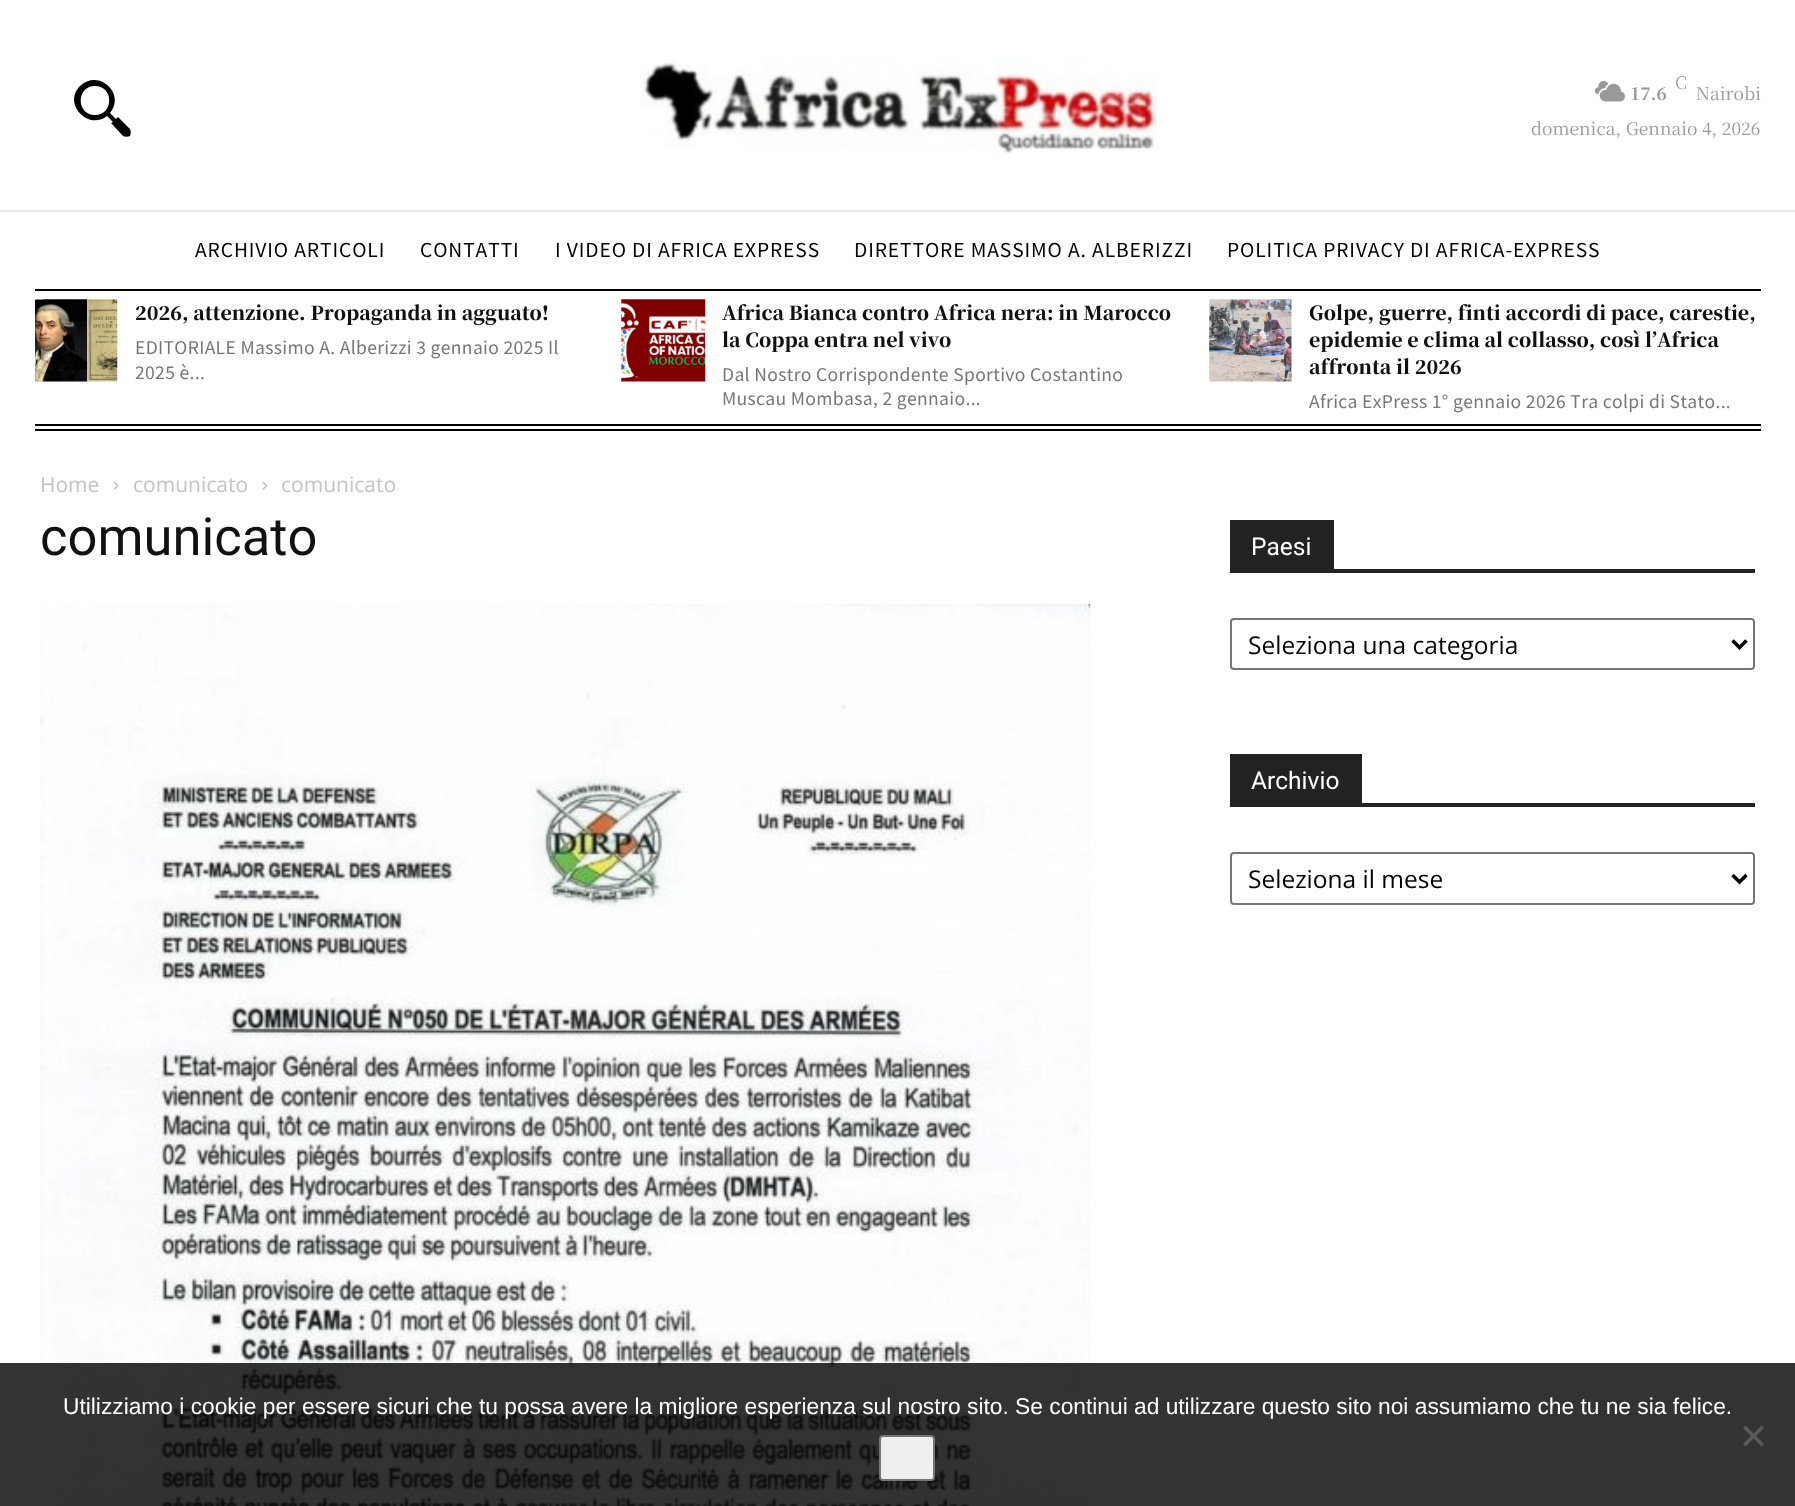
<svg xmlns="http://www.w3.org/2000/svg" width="1795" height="1506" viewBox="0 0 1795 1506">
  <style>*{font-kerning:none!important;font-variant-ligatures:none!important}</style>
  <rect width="100%" height="100%" fill="#fff"/>
  <path d="M130 129L118 117L116 119L110 113C126 94 99 68 80 86C62 104 89 131 107 116L113 122L111 123L123 136C125 137 128 137 130 136C131 134 131 131 130 129ZM95 115C76 115 76 86 95 86C114 86 114 115 95 115Z" fill="#000"/>
  <image x="640" y="56" width="518" height="99" href="img/1.png"/>
  <image x="1594" y="81" width="31" height="21" href="img/2.png"/>
  <path d="M0 210h1795v2H0z" fill="#e8e8e8"/>
  <path d="M35 289h1726v2H35z" fill="#000"/>
  <path d="M35 429h1726v2H35z" fill="#000"/>
  <image x="35" y="299" width="83" height="83" href="img/3.png"/>
  <image x="621" y="299" width="85" height="83" href="img/4.png"/>
  <image x="1209" y="299" width="83" height="83" href="img/5.png"/>
  <path d="M35 424h1726v2H35z" fill="#000"/>
  <image x="113" y="481" width="6" height="9" href="img/6.png"/>
  <image x="262" y="481" width="6" height="9" href="img/7.png"/>
  <image x="40" y="603" width="1051" height="903" href="img/8.png"/>
  <path d="M1230 569h525v4H1230z" fill="#222"/>
  <path d="M1230 520h104v49H1230z" fill="#222"/>
  <rect x="1231" y="619" width="523" height="50" rx="3" fill="none" stroke="#767676" stroke-width="2"/>
  <path d="M1732.5 640.5L1739.5 647.5L1746.5 640.5" fill="none" stroke="#000" stroke-width="3.5"/>
  <path d="M1230 803h525v4H1230z" fill="#222"/>
  <path d="M1230 754h132v49H1230z" fill="#222"/>
  <rect x="1231" y="853" width="523" height="51" rx="3" fill="none" stroke="#767676" stroke-width="2"/>
  <path d="M1732.5 875L1739.5 882L1746.5 875" fill="none" stroke="#000" stroke-width="3.5"/>
  <path d="M0 1363h1795v143H0z" fill="#000000cc"/>
  <rect x="880" y="1436" width="54" height="44" rx="3" fill="#efefef" stroke="#767676" stroke-width="2"/>
  <path d="M1761.5 1425.5L1764 1428L1745.5 1446.5L1743 1444Z" fill="#5a5a5a"/>
  <path d="M1743 1428L1745.5 1425.5L1764 1444L1761.5 1446.5Z" fill="#5a5a5a"/>
  <text x="1675" y="89" font-family="Noto Serif JP" font-size="17.5" font-weight="300" fill="#999">C</text>
  <text x="1630" y="100" font-family="Noto Serif JP" font-size="17.5" font-weight="bold" fill="#999">17.6</text>
  <g font-family="Noto Serif JP" font-size="17.5" fill="#999">
    <text x="1696" y="100">Nairobi</text>
    <text x="1531" y="135">domenica, Gennaio 4, 2026</text>
  </g>
  <g font-family="Noto Sans JP" font-size="19.25" letter-spacing="0.9" fill="#000">
    <text x="195" y="257">ARCHIVIO ARTICOLI</text>
    <text x="420" y="257">CONTATTI</text>
    <text x="555" y="257">I VIDEO DI AFRICA EXPRESS</text>
    <text x="854" y="257">DIRETTORE MASSIMO A. ALBERIZZI</text>
    <text x="1227" y="257">POLITICA PRIVACY DI AFRICA-EXPRESS</text>
  </g>
  <text x="135" y="320" font-family="Noto Serif JP" font-size="19.25" font-weight="900" fill="#111">2026, attenzione. Propaganda in agguato!</text>
  <g font-family="Noto Sans JP" font-size="17.5" letter-spacing="0.35" fill="#767676">
    <text x="135" y="354">EDITORIALE Massimo A. Alberizzi 3 gennaio 2025 Il</text>
    <text x="135" y="379">2025 è...</text>
  </g>
  <g font-family="Noto Serif JP" font-size="19.25" font-weight="900" fill="#111">
    <text x="722" y="320">Africa Bianca contro Africa nera: in Marocco</text>
    <text x="722" y="347">la Coppa entra nel vivo</text>
  </g>
  <g font-family="Noto Sans JP" font-size="17.5" letter-spacing="0.35" fill="#767676">
    <text x="722" y="381">Dal Nostro Corrispondente Sportivo Costantino</text>
    <text x="722" y="405">Muscau Mombasa, 2 gennaio...</text>
  </g>
  <g font-family="Noto Serif JP" font-size="19.25" font-weight="900" fill="#111">
    <text x="1309" y="320">Golpe, guerre, finti accordi di pace, carestie,</text>
    <text x="1309" y="347">epidemie e clima al collasso, così l’Africa</text>
    <text x="1309" y="374">affronta il 2026</text>
  </g>
  <text x="1309" y="408" font-family="Noto Sans JP" font-size="17.5" letter-spacing="0.35" fill="#767676">Africa ExPress 1° gennaio 2026 Tra colpi di Stato...</text>
  <g font-family="Open Sans" font-size="21" fill="#c3c3c3">
    <text x="40" y="492">Home</text>
    <text x="133" y="492">comunicato</text>
    <text x="281" y="492">comunicato</text>
  </g>
  <text x="40" y="555" font-family="Roboto" font-size="52.5" fill="#111">comunicato</text>
  <text x="1251" y="555" font-family="Roboto" font-size="24.5" fill="#fff">Paesi</text>
  <text x="1248" y="654" font-family="Open Sans" font-size="24.5" fill="#000">Seleziona una categoria</text>
  <text x="1251" y="789" font-family="Roboto" font-size="24.5" fill="#fff">Archivio</text>
  <text x="1248" y="888" font-family="Open Sans" font-size="24.5" fill="#000">Seleziona il mese</text>
  <text x="63" y="1414" font-family="Liberation Sans" font-size="22.75" fill="#fff">Utilizziamo i cookie per essere sicuri che tu possa avere la migliore esperienza sul nostro sito. Se continui ad utilizzare questo sito noi assumiamo che tu ne sia felice.</text>
</svg>
